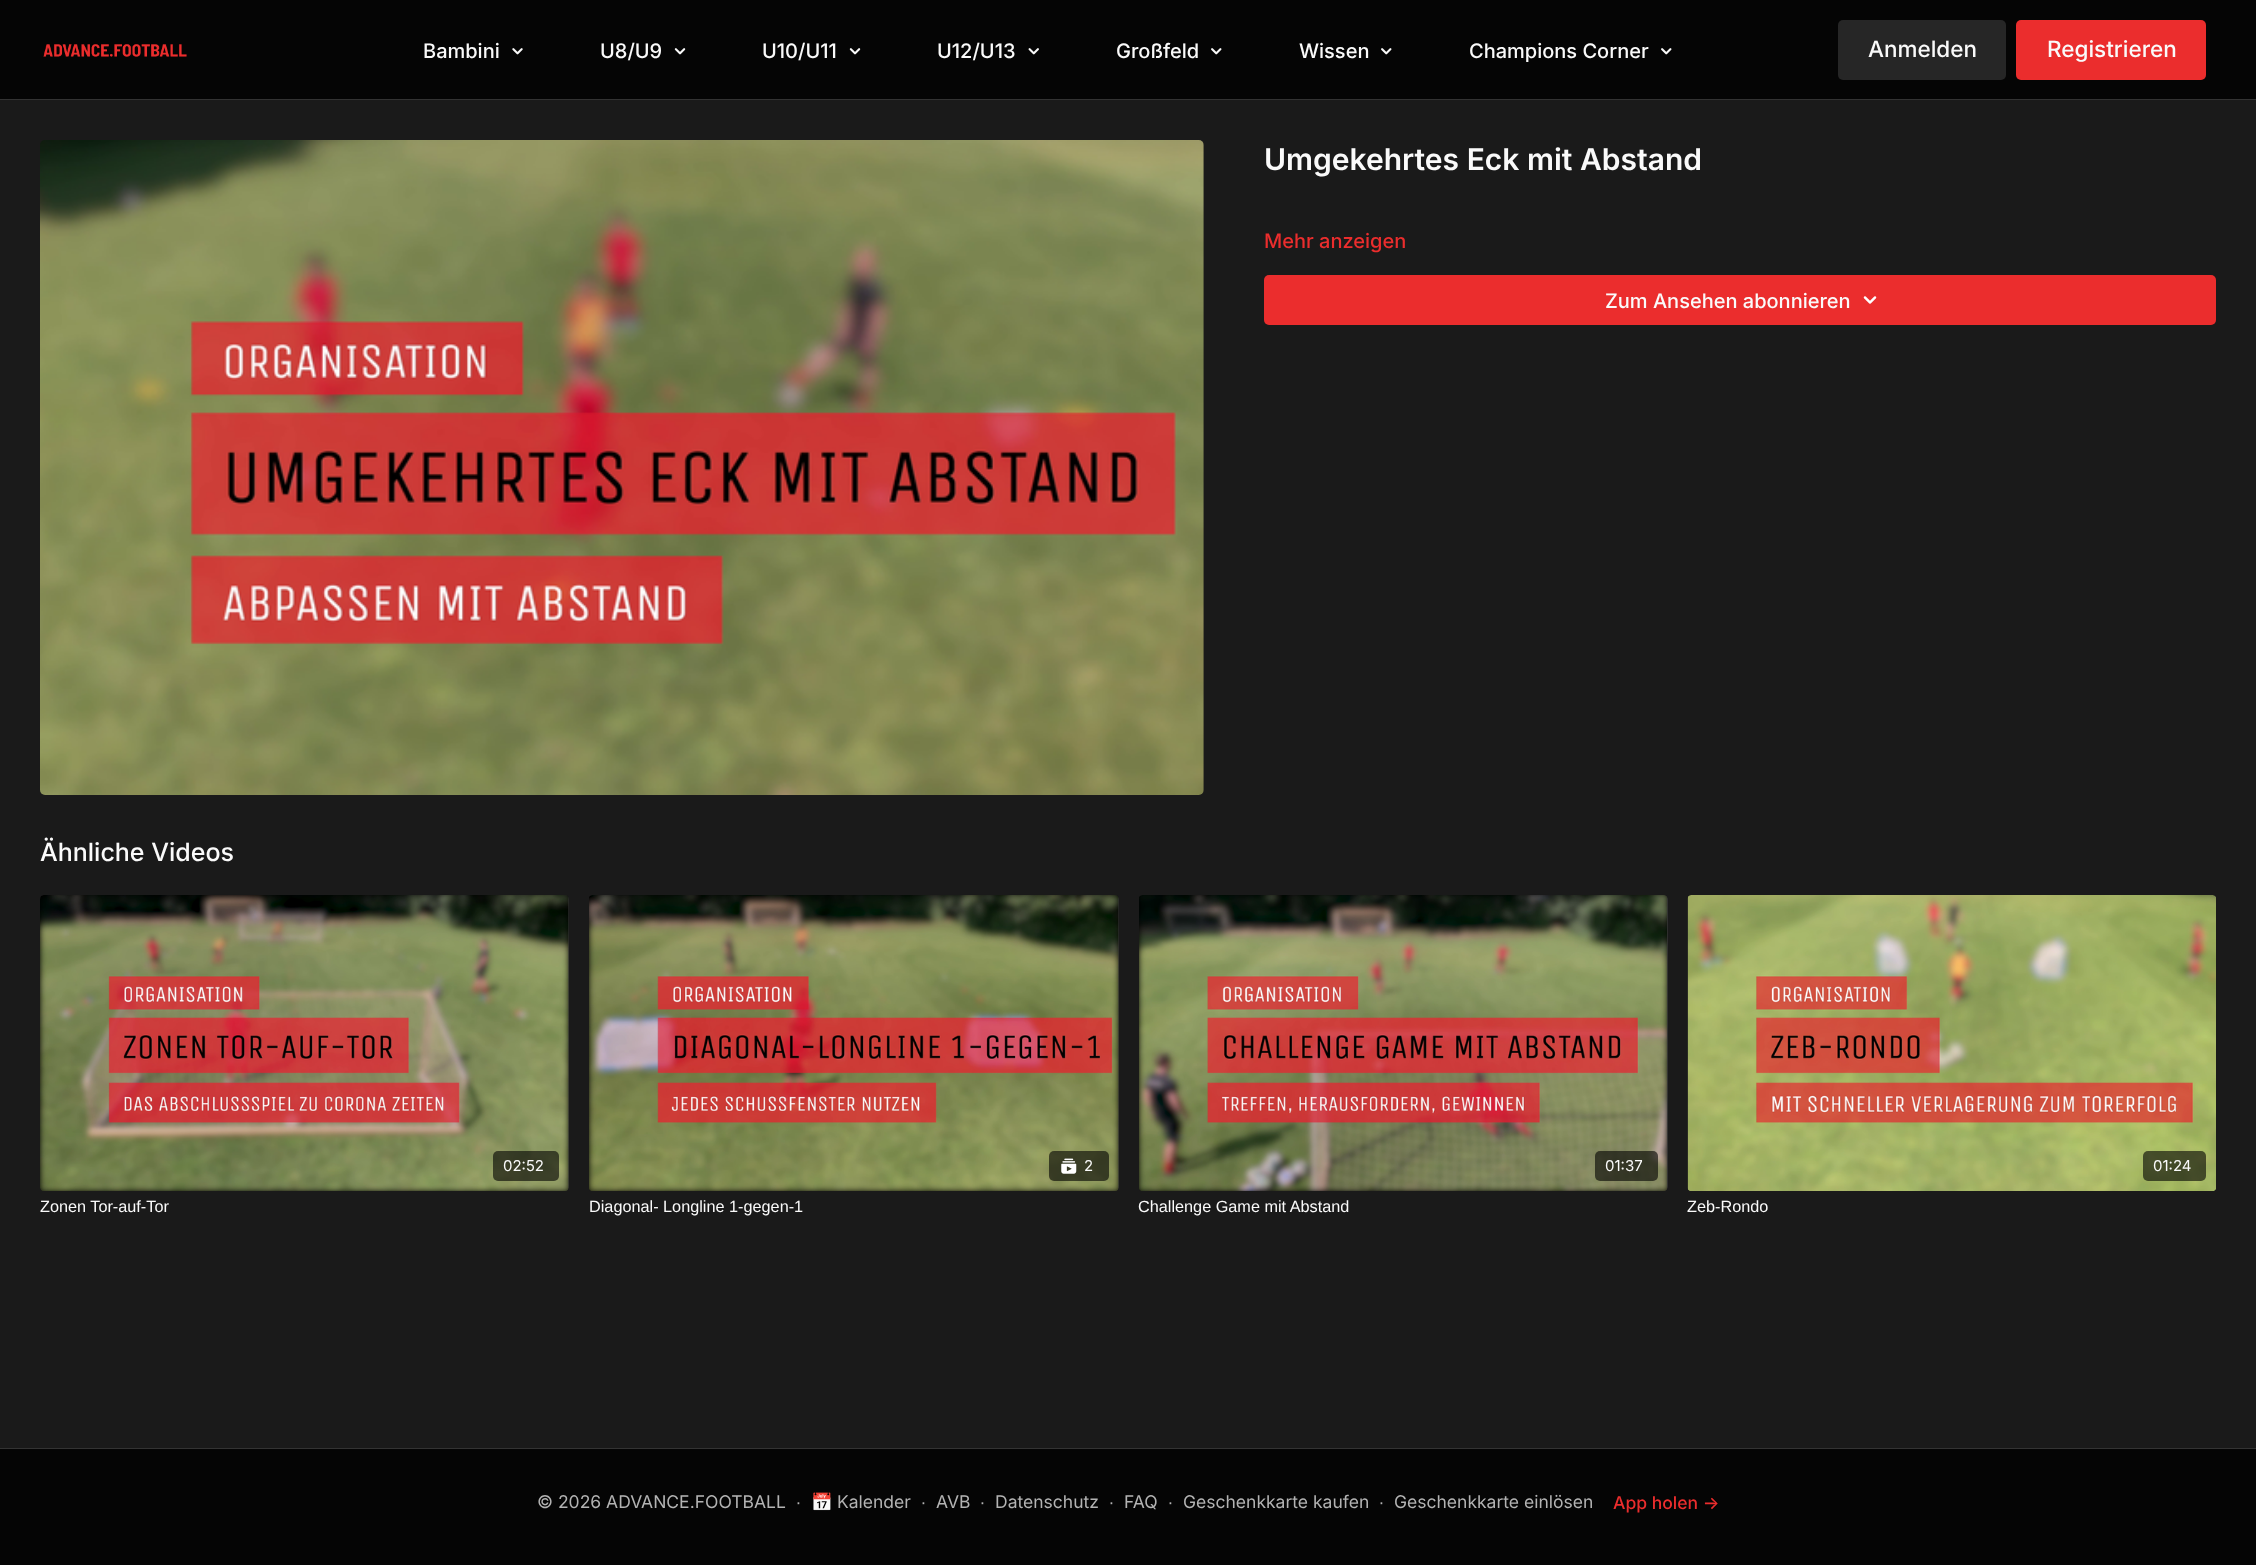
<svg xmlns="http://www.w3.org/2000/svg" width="2256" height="1565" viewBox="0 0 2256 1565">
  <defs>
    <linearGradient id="g1" gradientUnits="userSpaceOnUse" x1="40" y1="1043" x2="569" y2="1043"><stop offset="0.08" stop-color="#383838"/><stop offset="0.18" stop-color="#353535"/><stop offset="0.33" stop-color="#333"/></linearGradient>
    <linearGradient id="g2" gradientUnits="userSpaceOnUse" x1="589" y1="1043" x2="1119" y2="1043"><stop offset="0.08" stop-color="#383838"/><stop offset="0.18" stop-color="#353535"/><stop offset="0.33" stop-color="#333"/></linearGradient>
    <linearGradient id="g3" gradientUnits="userSpaceOnUse" x1="1139" y1="1043" x2="1668" y2="1043"><stop offset="0.08" stop-color="#383838"/><stop offset="0.18" stop-color="#353535"/><stop offset="0.33" stop-color="#333"/></linearGradient>
  </defs>
  <rect width="100%" height="100%" fill="#1a1a1a"/>
  <path d="M0 0h2256v99H0z" fill="#050505"/>
  <path d="M0 99h2256v1H0z" fill="#333"/>
  <image x="43" y="44" width="144" height="13" href="img/1.png"/>
  <image x="512" y="48" width="11" height="7" href="img/2.png"/>
  <image x="674" y="48" width="12" height="7" href="img/3.png"/>
  <image x="849" y="48" width="12" height="7" href="img/3.png"/>
  <image x="1028" y="48" width="11" height="7" href="img/4.png"/>
  <image x="1211" y="48" width="11" height="7" href="img/5.png"/>
  <image x="1381" y="48" width="11" height="7" href="img/5.png"/>
  <image x="1661" y="48" width="11" height="7" href="img/5.png"/>
  <rect x="1838" y="20" width="168" height="60" rx="5" fill="#262626"/>
  <rect x="2016" y="20" width="190" height="60" rx="5" fill="#eb2d2d"/>
  <image x="40" y="140" width="1164" height="655" href="img/6.png"/>
  <rect x="1264" y="275" width="952" height="50" rx="5" fill="#eb2d2d"/>
  <image x="1863" y="296" width="14" height="8" href="img/7.png"/>
  <rect x="40" y="895" width="529" height="296" rx="5" fill="url(#g1)"/>
  <image x="40" y="895" width="529" height="296" href="img/8.png"/>
  <rect x="493" y="1151" width="66" height="30" rx="5" fill="#00000099"/>
  <rect x="589" y="895" width="530" height="296" rx="5" fill="url(#g2)"/>
  <image x="589" y="895" width="530" height="296" href="img/9.png"/>
  <rect x="1049" y="1151" width="60" height="30" rx="5" fill="#00000099"/>
  <image x="1061" y="1158" width="16" height="16" href="img/10.png"/>
  <rect x="1139" y="895" width="529" height="296" rx="5" fill="url(#g3)"/>
  <image x="1139" y="895" width="529" height="296" href="img/11.png"/>
  <rect x="1595" y="1151" width="63" height="30" rx="5" fill="#00000099"/>
  <image x="1687" y="895" width="529" height="296" href="img/12.png"/>
  <rect x="2143" y="1151" width="63" height="30" rx="5" fill="#00000099"/>
  <path d="M0 1449h2256v116H0z" fill="#050505"/>
  <path d="M0 1448h2256v1H0z" fill="#333"/>
  <g font-family="Inter" font-size="20" font-weight="500" fill="#fafafa">
    <text x="423" y="58">Bambini</text>
    <text x="600" y="58">U8/U9</text>
    <text x="762" y="58">U10/U11</text>
    <text x="937" y="58">U12/U13</text>
    <text x="1116" y="58">Großfeld</text>
    <text x="1299" y="58">Wissen</text>
    <text x="1469" y="58">Champions Corner</text>
  </g>
  <g font-family="Inter" font-size="22.5" font-weight="500" fill="#fafafa">
    <text x="1868" y="57">Anmelden</text>
    <text x="2047" y="57">Registrieren</text>
  </g>
  <text x="1264" y="170" font-family="Inter" font-size="30" font-weight="600" fill="#fafafa">Umgekehrtes Eck mit Abstand</text>
  <text x="1264" y="248" font-family="Inter" font-size="20" font-weight="500" fill="#eb2d2d">Mehr anzeigen</text>
  <text x="1605" y="308" font-family="Inter" font-size="20" font-weight="500" fill="#fafafa">Zum Ansehen abonnieren</text>
  <text x="40" y="861" font-family="Inter" font-size="25" font-weight="500" fill="#fafafa">Ähnliche Videos</text>
  <text x="503" y="1171" font-family="Inter" font-size="15" fill="#fafafa">02:52</text>
  <text x="40" y="1212" font-family="Liberation Sans" font-size="16.25" fill="#fafafa">Zonen Tor-auf-Tor</text>
  <text x="1084" y="1171" font-family="Inter" font-size="15" fill="#fafafa">2</text>
  <text x="589" y="1212" font-family="Liberation Sans" font-size="16.25" fill="#fafafa">Diagonal- Longline 1-gegen-1</text>
  <text x="1605" y="1171" font-family="Inter" font-size="15" fill="#fafafa">01:37</text>
  <text x="1138" y="1212" font-family="Liberation Sans" font-size="16.25" fill="#fafafa">Challenge Game mit Abstand</text>
  <text x="2153" y="1171" font-family="Inter" font-size="15" fill="#fafafa">01:24</text>
  <text x="1687" y="1212" font-family="Liberation Sans" font-size="16.25" fill="#fafafa">Zeb-Rondo</text>
  <text x="537" y="1508" font-family="Inter" font-size="17.5" fill="#b3b3b3">© 2026 ADVANCE.FOOTBALL</text>
  <text x="796" y="1508" font-family="Liberation Sans" font-size="17.5" fill="#b3b3b3">∙</text>
  <text x="811" y="1508" font-family="Noto Color Emoji" font-size="17.5" fill="#b3b3b3">📅</text>
  <text x="837" y="1508" font-family="Inter" font-size="17.5" fill="#b3b3b3">Kalender</text>
  <text x="921" y="1508" font-family="Liberation Sans" font-size="17.5" fill="#b3b3b3">∙</text>
  <text x="936" y="1508" font-family="Inter" font-size="17.5" fill="#b3b3b3">AVB</text>
  <text x="980" y="1508" font-family="Liberation Sans" font-size="17.5" fill="#b3b3b3">∙</text>
  <text x="995" y="1508" font-family="Inter" font-size="17.5" fill="#b3b3b3">Datenschutz</text>
  <text x="1109" y="1508" font-family="Liberation Sans" font-size="17.5" fill="#b3b3b3">∙</text>
  <text x="1124" y="1508" font-family="Inter" font-size="17.5" fill="#b3b3b3">FAQ</text>
  <text x="1168" y="1508" font-family="Liberation Sans" font-size="17.5" fill="#b3b3b3">∙</text>
  <text x="1183" y="1508" font-family="Inter" font-size="17.5" fill="#b3b3b3">Geschenkkarte kaufen</text>
  <text x="1379" y="1508" font-family="Liberation Sans" font-size="17.5" fill="#b3b3b3">∙</text>
  <text x="1394" y="1508" font-family="Inter" font-size="17.5" fill="#b3b3b3">Geschenkkarte einlösen</text>
  <text x="1613" y="1509" font-family="Inter" font-size="17.5" font-weight="500" fill="#eb2d2d">App holen -&gt;</text>
</svg>
